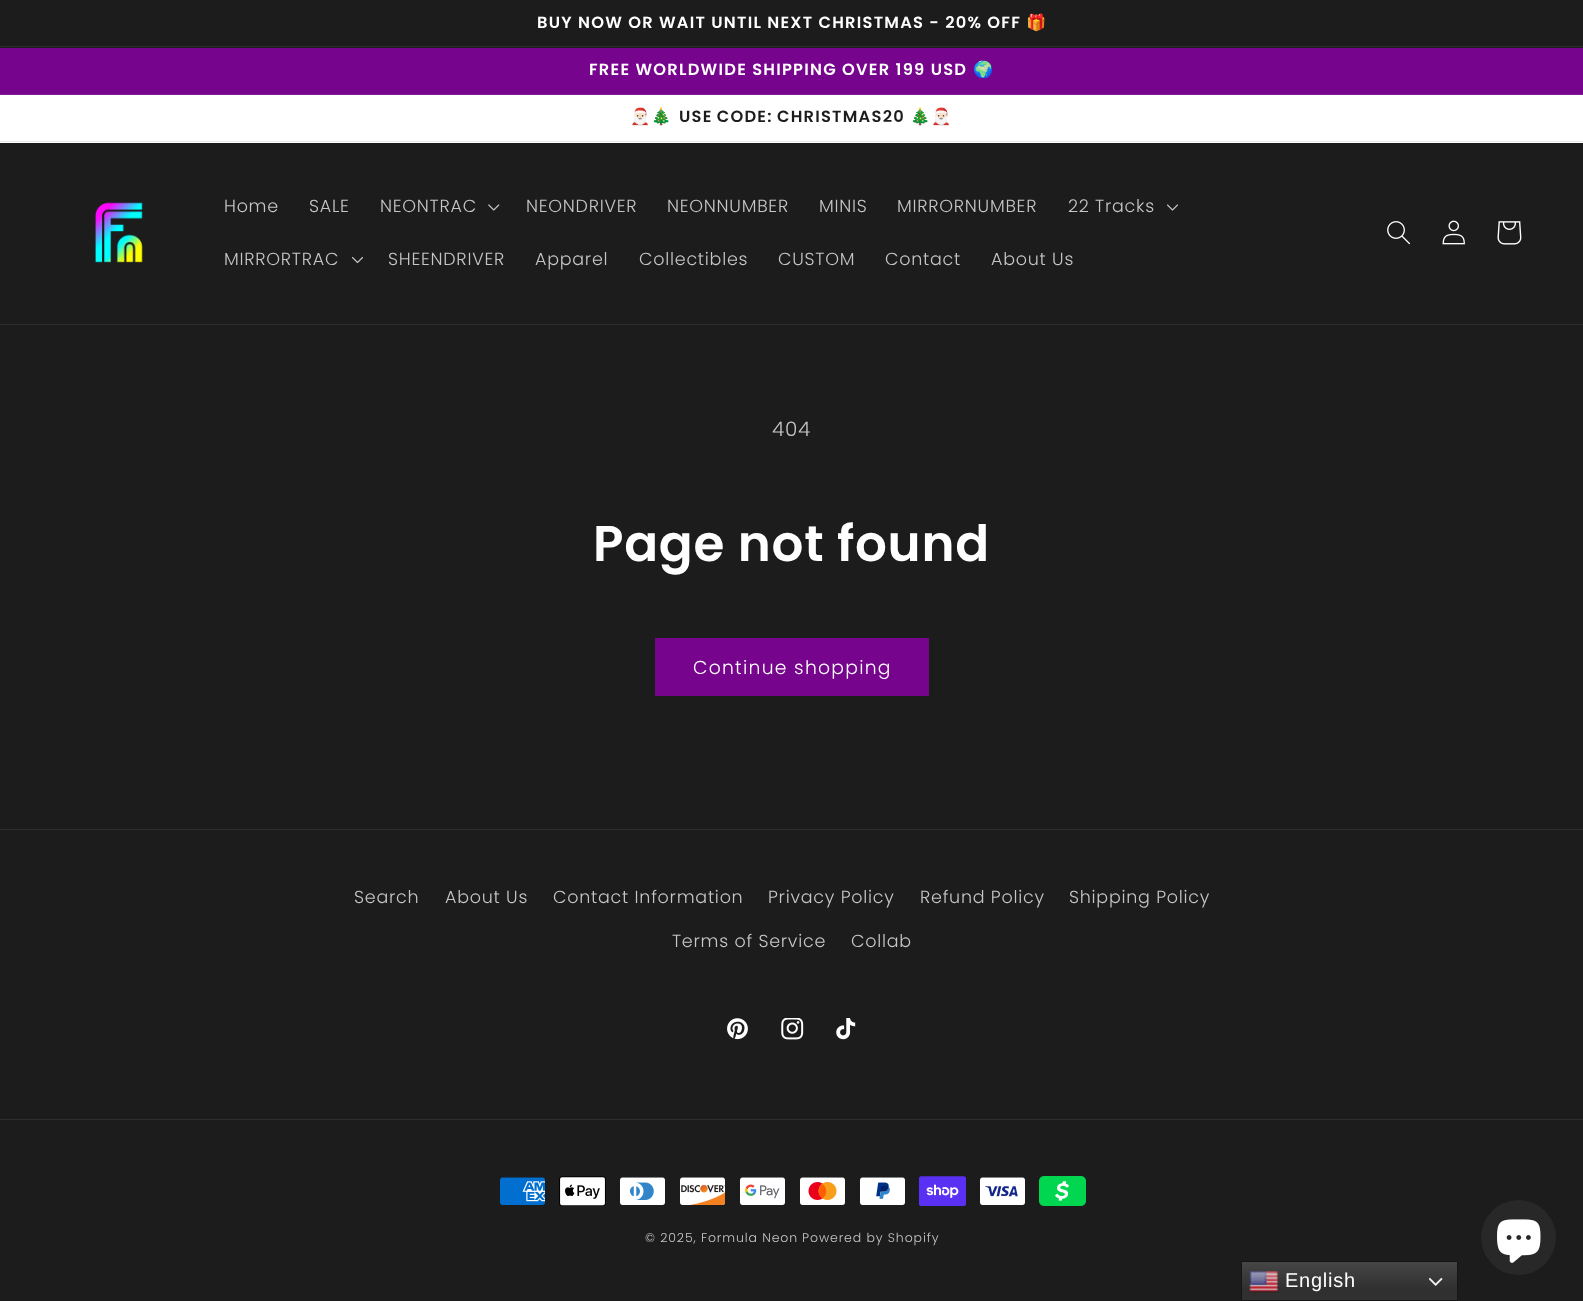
<svg xmlns="http://www.w3.org/2000/svg" width="1583" height="1301" viewBox="0 0 1583 1301">
  <defs>
    <linearGradient id="g1" gradientUnits="userSpaceOnUse" x1="1349" y1="1261" x2="1349" y2="1301"><stop offset="0" stop-color="#474747"/><stop offset="0.7" stop-color="#303030"/></linearGradient>
  </defs>
  <rect width="100%" height="100%" fill="#1c1c1c"/>
  <path d="M0 46h1583v1H0z" fill="#2e2e2e"/>
  <path d="M0 48h1583v46H0z" fill="#76048c"/>
  <path d="M0 94h1583v1H0z" fill="#811895"/>
  <path d="M0 95h1583v48H0z" fill="#fff"/>
  <path d="M0 141h1583v1H0z" fill="#ededed"/>
  <path d="M0 324h1583v1H0z" fill="#2e2e2e"/>
  <image x="95" y="202" width="48" height="61" href="img/1.png"/>
  <image x="488" y="204" width="12" height="7" href="img/2.png"/>
  <image x="1167" y="204" width="11" height="7" href="img/3.png"/>
  <image x="351" y="256" width="13" height="8" href="img/4.png"/>
  <image x="1387" y="221" width="23" height="24" href="img/5.png"/>
  <image x="1442" y="220" width="23" height="25" href="img/6.png"/>
  <image x="1497" y="221" width="25" height="24" href="img/7.png"/>
  <path d="M655 638h274v58H655z" fill="#76048c"/>
  <path d="M0 829h1583v1H0z" fill="#2e2e2e"/>
  <image x="727" y="1018" width="21" height="22" href="img/8.png"/>
  <image x="781" y="1018" width="23" height="22" href="img/9.png"/>
  <image x="836" y="1018" width="20" height="22" href="img/10.png"/>
  <path d="M0 1119h1583v1H0z" fill="#2e2e2e"/>
  <image x="500" y="1177" width="45" height="28" href="img/11.png"/>
  <image x="559" y="1176" width="47" height="30" href="img/12.png"/>
  <image x="620" y="1177" width="45" height="28" href="img/13.png"/>
  <image x="680" y="1177" width="45" height="28" href="img/14.png"/>
  <image x="740" y="1177" width="45" height="28" href="img/15.png"/>
  <image x="800" y="1177" width="45" height="28" href="img/16.png"/>
  <image x="860" y="1177" width="45" height="28" href="img/17.png"/>
  <image x="919" y="1176" width="47" height="30" href="img/18.png"/>
  <image x="980" y="1177" width="45" height="28" href="img/19.png"/>
  <image x="1039" y="1176" width="47" height="30" href="img/20.png"/>
  <circle cx="1518.5" cy="1237.5" r="37.5" fill="#282828"/>
  <image x="1497" y="1219" width="44" height="44" href="img/21.png"/>
  <path d="M1242 1262h215v38H1242z" fill="url(#g1)"/>
  <path d="M1241.5 1261.5h216v39H1241.5z" fill="none" stroke="#161616"/>
  <image x="1249" y="1271" width="30" height="22" href="img/22.png"/>
  <image x="1429" y="1277" width="14" height="9" href="img/23.png"/>
  <text x="537" y="28" font-family="Poppins" font-size="16.25" font-weight="600" letter-spacing="1.25" fill="#fff">BUY NOW OR WAIT UNTIL NEXT CHRISTMAS - 20% OFF</text>
  <text x="1026" y="28" font-family="Noto Color Emoji" font-size="16.25" font-weight="bold" letter-spacing="1.25" fill="#fff">🎁</text>
  <text x="589" y="75" font-family="Poppins" font-size="16.25" font-weight="600" letter-spacing="1.25" fill="#fff">FREE WORLDWIDE SHIPPING OVER 199 USD</text>
  <text x="973" y="75" font-family="Noto Color Emoji" font-size="16.25" font-weight="bold" letter-spacing="1.25" fill="#fff">🌍</text>
  <text x="630" y="122" font-family="Noto Color Emoji" font-size="16.25" font-weight="bold" letter-spacing="1.25" fill="#1c1c1c">🎅🏻🎄</text>
  <text x="679" y="122" word-spacing="-1" font-family="Poppins" font-size="16.25" font-weight="600" letter-spacing="1.25" fill="#1c1c1c">USE CODE: CHRISTMAS20</text>
  <text x="910" y="122" font-family="Noto Color Emoji" font-size="16.25" font-weight="bold" letter-spacing="1.25" fill="#1c1c1c">🎄🎅🏻</text>
  <g font-family="Poppins" font-size="17.5" font-weight="300" letter-spacing="0.75" fill="#c6c6c6">
    <text x="224" y="212">Home</text>
    <text x="309" y="212">SALE</text>
    <text x="380" y="212">NEONTRAC</text>
    <text x="526" y="212">NEONDRIVER</text>
    <text x="667" y="212">NEONNUMBER</text>
    <text x="819" y="212">MINIS</text>
    <text x="897" y="212">MIRRORNUMBER</text>
    <text x="1068" y="212">22 Tracks</text>
    <text x="224" y="265">MIRRORTRAC</text>
    <text x="388" y="265">SHEENDRIVER</text>
    <text x="535" y="265">Apparel</text>
    <text x="639" y="265">Collectibles</text>
    <text x="778" y="265">CUSTOM</text>
    <text x="885" y="265">Contact</text>
    <text x="991" y="265">About Us</text>
  </g>
  <text x="772" y="436" font-family="Poppins" font-size="20" font-weight="300" letter-spacing="0.75" fill="#c6c6c6">404</text>
  <text x="593" y="561" font-family="Poppins" font-size="50" font-weight="600" letter-spacing="0.75" fill="#fff">Page not found</text>
  <text x="693" y="674" font-family="Poppins" font-size="18.75" font-weight="300" letter-spacing="1.25" fill="#fff">Continue shopping</text>
  <g font-family="Poppins" font-size="17.5" font-weight="300" letter-spacing="0.75" fill="#c6c6c6">
    <text x="354" y="903">Search</text>
    <text x="445" y="903">About Us</text>
    <text x="553" y="903">Contact Information</text>
    <text x="768" y="903">Privacy Policy</text>
    <text x="920" y="903">Refund Policy</text>
    <text x="1069" y="903">Shipping Policy</text>
    <text x="672" y="947">Terms of Service</text>
    <text x="851" y="947">Collab</text>
  </g>
  <g font-family="Poppins" font-size="12.5" font-weight="300" letter-spacing="0.9" fill="#c6c6c6">
    <text x="645" y="1242">© 2025, Formula Neon</text>
    <text x="802" y="1242">Powered by Shopify</text>
  </g>
  <text x="1285" y="1287" font-family="Liberation Sans" font-size="20" letter-spacing="0.75" fill="#fff">English</text>
</svg>
